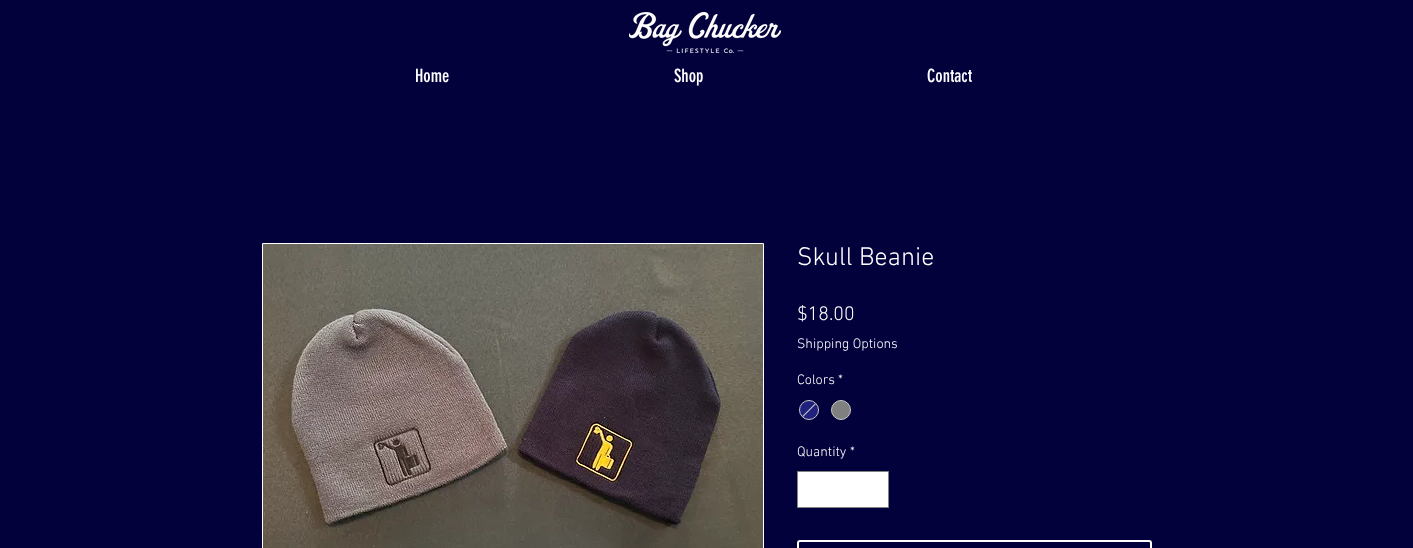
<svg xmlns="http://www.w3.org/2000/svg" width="1413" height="548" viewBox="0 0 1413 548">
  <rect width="100%" height="100%" fill="#02013c"/>
  <image x="629" y="12" width="152" height="41" href="img/1.png"/>
  <path d="M262.5 243.5h501v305H262.5z" fill="none" stroke="#fff"/>
  <image x="263" y="244" width="500" height="304" href="img/2.png"/>
  <circle cx="809" cy="410" r="9.5" fill="#1f217d" stroke="#c9c9c9"/>
  <path d="M816 404L803 417L802.5 416L815 403.5Z" fill="#c9c9c9"/>
  <circle cx="841" cy="410" r="9.5" fill="#808080" stroke="#c9c9c9"/>
  <path d="M797.5 471.5h91v36H797.5z" fill="#fff" stroke="#828282"/>
  <rect x="798" y="541" width="353" height="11" rx="2" fill="none" stroke="#fff" stroke-width="2"/>
  <g font-family="'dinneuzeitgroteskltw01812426'" font-size="18" fill="#fff">
    <text x="415" y="82">Home</text>
    <text x="674" y="82">Shop</text>
    <text x="927" y="82">Contact</text>
  </g>
  <text x="797" y="265" font-family="'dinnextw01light'" font-size="26" font-weight="300" fill="#fff">Skull Beanie</text>
  <text x="797" y="320" font-family="'dinnextw01light'" font-size="20" font-weight="300" fill="#fff">$18.00</text>
  <g font-family="'dinnextw01light'" font-size="14" font-weight="300" fill="#fff">
    <text x="797" y="348">Shipping Options</text>
    <text x="797" y="384">Colors</text>
    <text x="838" y="384">*</text>
    <text x="797" y="456">Quantity</text>
    <text x="850" y="456">*</text>
  </g>
</svg>
